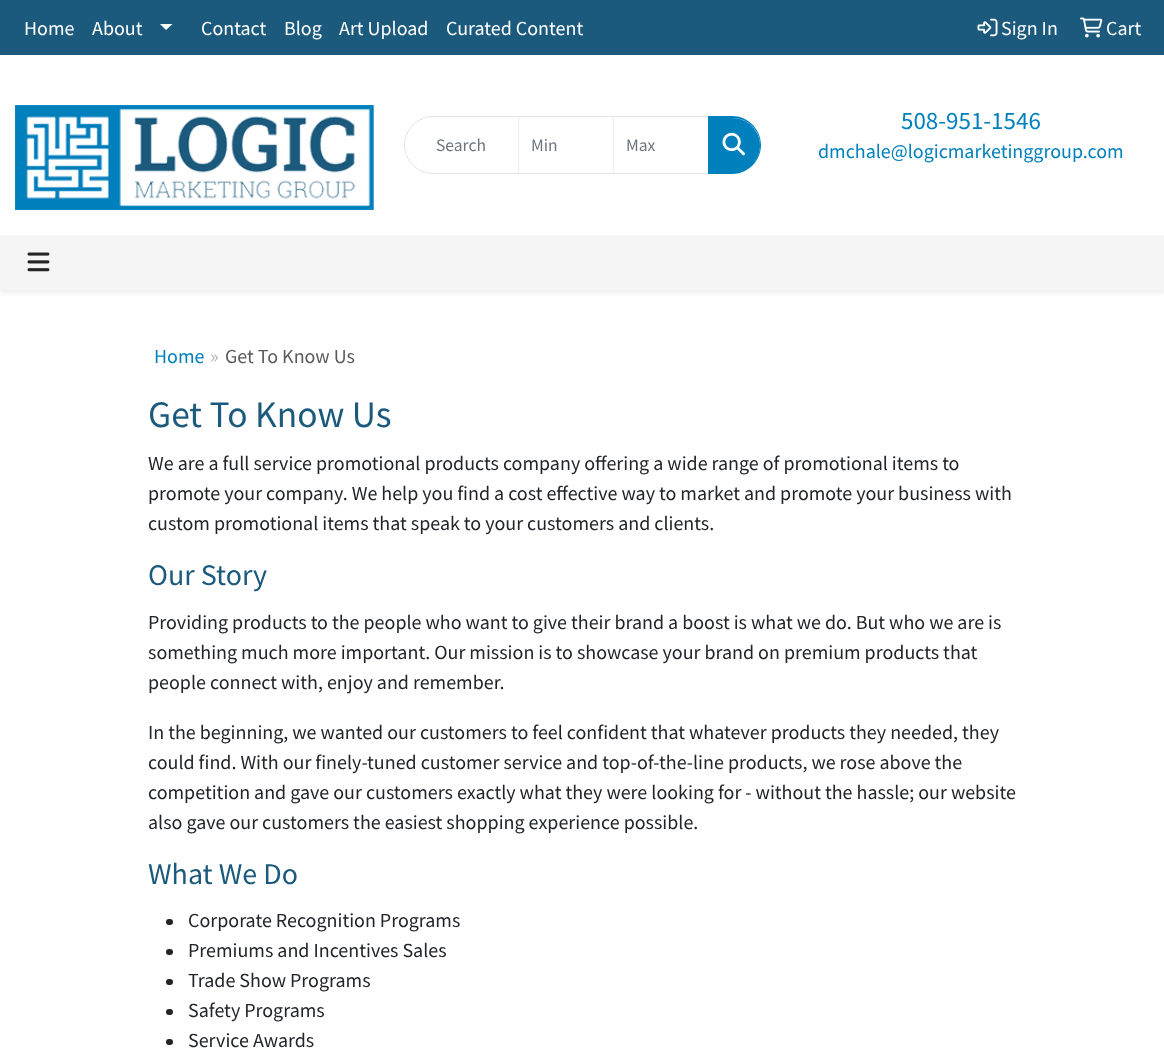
<svg xmlns="http://www.w3.org/2000/svg" width="1164" height="1062" viewBox="0 0 1164 1062">
  <rect width="100%" height="100%" fill="#fff"/>
  <path d="M0 0h1164v55H0z" fill="#1b5a7d"/>
  <path d="M160 24H172.5L166 30Z" fill="#fff"/>
  <image x="977" y="18" width="21" height="19" href="img/1.png"/>
  <image x="1080" y="17" width="23" height="21" href="img/2.png"/>
  <image x="15" y="105" width="359" height="105" href="img/3.png"/>
  <path d="M433 116.5H518.5V173.5H433C417.5 173.5 404.5 160.5 404.5 145C404.5 129.5 417.5 116.5 433 116.5Z" fill="none" stroke="#e4e4e4"/>
  <path d="M518 116h191v1H518z" fill="#e4e4e4"/>
  <path d="M518 173h191v1H518z" fill="#e4e4e4"/>
  <path d="M518 116h1v58H518z" fill="#efefef"/>
  <path d="M613 116h1v58H613z" fill="#efefef"/>
  <path d="M708 118H732.5C747.5 118 760 130.5 760 145.5C760 160.5 747.5 173 732.5 173H708Z" fill="#0080bc"/>
  <path d="M708 116H732C748 116 761 129 761 145C761 161 748 174 732 174H708ZM708 118H732C748 118 760 130 760 145C760 160 748 172 732 172H708Z" fill="#0080bc" fill-rule="evenodd"/>
  <image x="722" y="132" width="23" height="24" href="img/4.png"/>
  <path d="M0 238h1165v55H0z" fill="#00000012" filter="blur(2.5px)"/>
  <path d="M0 235h1164v55H0z" fill="#f5f5f5"/>
  <image x="27" y="252" width="23" height="20" href="img/5.png"/>
  <rect x="166" y="919" width="7" height="6" rx="3" fill="#212529"/>
  <rect x="166" y="949" width="7" height="6" rx="3" fill="#212529"/>
  <rect x="166" y="979" width="7" height="6" rx="3" fill="#212529"/>
  <rect x="166" y="1009" width="7" height="6" rx="3" fill="#212529"/>
  <rect x="166" y="1039" width="7" height="6" rx="3" fill="#212529"/>
  <g font-family="Source Sans Pro" font-size="20" fill="#fff">
    <text x="24" y="35">Home</text>
    <text x="92" y="35">About</text>
    <text x="201" y="35">Contact</text>
    <text x="284" y="35">Blog</text>
    <text x="339" y="35">Art Upload</text>
    <text x="446" y="35">Curated Content</text>
    <text x="1001" y="35">Sign In</text>
    <text x="1106" y="35">Cart</text>
  </g>
  <g font-family="Source Sans Pro" font-size="17.5" fill="#6c757d">
    <text x="436" y="151">Search</text>
    <text x="531" y="151">Min</text>
    <text x="626" y="151">Max</text>
  </g>
  <text x="901" y="129" font-family="Source Sans Pro" font-size="25" fill="#0080bc">508-951-1546</text>
  <g font-family="Source Sans Pro" font-size="20" fill="#0080bc">
    <text x="818" y="158">dmchale@logicmarketinggroup.com</text>
    <text x="154" y="363">Home</text>
  </g>
  <text x="210" y="363" font-family="Source Sans Pro" font-size="20" fill="#b2b1b1">»</text>
  <text x="225" y="363" font-family="Source Sans Pro" font-size="20" fill="#5b5a5a">Get To Know Us</text>
  <text x="148" y="427" font-family="Source Sans Pro" font-size="37.5" fill="#1b5a7d">Get To Know Us</text>
  <g font-family="Source Sans Pro" font-size="20" fill="#212529">
    <text x="148" y="470">We are a full service promotional products company offering a wide range of promotional items to</text>
    <text x="148" y="500">promote your company. We help you find a cost effective way to market and promote your business with</text>
    <text x="148" y="530">custom promotional items that speak to your customers and clients.</text>
  </g>
  <text x="148" y="585" font-family="Source Sans Pro" font-size="30" fill="#1b5a7d">Our Story</text>
  <g font-family="Source Sans Pro" font-size="20" fill="#212529">
    <text x="148" y="629">Providing products to the people who want to give their brand a boost is what we do. But who we are is</text>
    <text x="148" y="659">something much more important. Our mission is to showcase your brand on premium products that</text>
    <text x="148" y="689">people connect with, enjoy and remember.</text>
    <text x="148" y="739">In the beginning, we wanted our customers to feel confident that whatever products they needed, they</text>
    <text x="148" y="769">could find. With our finely-tuned customer service and top-of-the-line products, we rose above the</text>
    <text x="148" y="799">competition and gave our customers exactly what they were looking for - without the hassle; our website</text>
    <text x="148" y="829">also gave our customers the easiest shopping experience possible.</text>
  </g>
  <text x="148" y="884" font-family="Source Sans Pro" font-size="30" fill="#1b5a7d">What We Do</text>
  <g font-family="Source Sans Pro" font-size="20" fill="#212529">
    <text x="188" y="927">Corporate Recognition Programs</text>
    <text x="188" y="957">Premiums and Incentives Sales</text>
    <text x="188" y="987">Trade Show Programs</text>
    <text x="188" y="1017">Safety Programs</text>
    <text x="188" y="1047">Service Awards</text>
  </g>
</svg>
